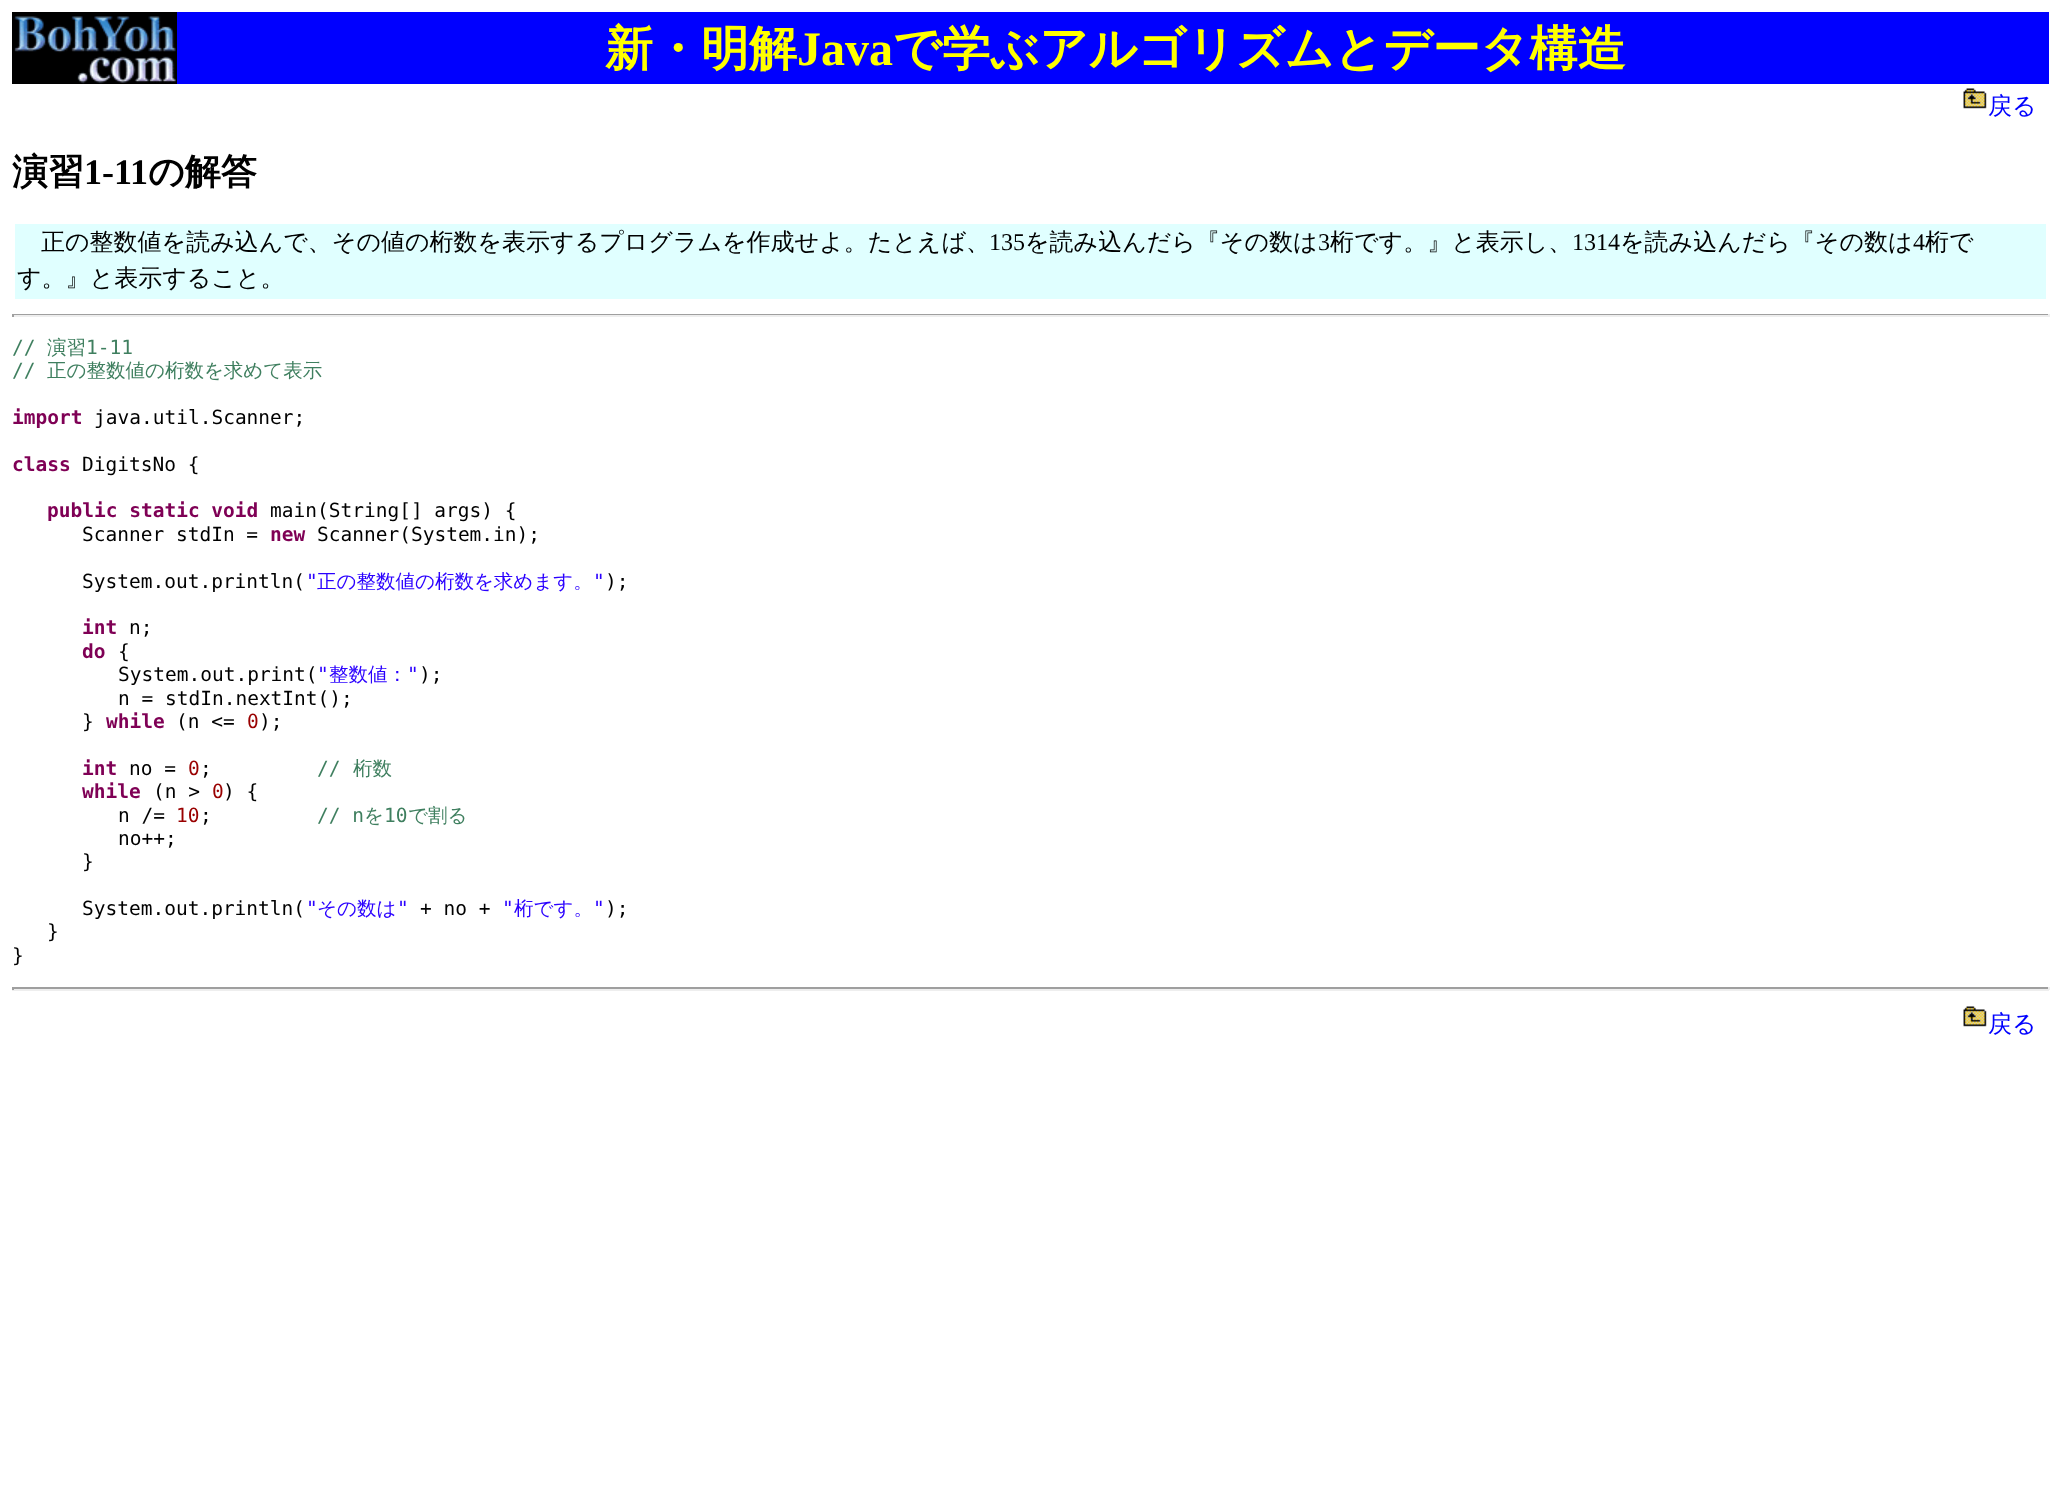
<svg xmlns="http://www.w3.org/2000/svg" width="2060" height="1485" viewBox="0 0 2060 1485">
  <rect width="100%" height="100%" fill="#fff"/>
  <image x="12" y="12" width="165" height="72" href="img/1.png"/>
  <path d="M177 12h1872v72H177z" fill="#00f"/>
  <image x="1963" y="88" width="24" height="21" href="img/2.png"/>
  <path d="M15 224h2031v75H15z" fill="#e0ffff"/>
  <path d="M12 314h2037v1H12z" fill="#9f9f9f"/>
  <path d="M2048 314h2v3H2048z" fill="#eee"/>
  <path d="M12 315h2037v2H12z" fill="#eee"/>
  <path d="M12 314h2v3H12z" fill="#9f9f9f"/>
  <path d="M12 987h2037v2H12z" fill="#9f9f9f"/>
  <path d="M2048 987h2v3H2048z" fill="#eee"/>
  <path d="M12 989h2037v2H12z" fill="#eee"/>
  <path d="M12 987h2v3H12z" fill="#9f9f9f"/>
  <image x="1963" y="1006" width="24" height="21" href="img/2.png"/>
  <text x="605" y="65" font-family="WenQuanYi Zen Hei" font-size="48" font-weight="bold" fill="#ff0">新・明解</text>
  <text x="797" y="65" font-family="Liberation Serif" font-size="48" font-weight="bold" fill="#ff0">Java</text>
  <text x="893" y="65" font-family="WenQuanYi Zen Hei" font-size="48" font-weight="bold" fill="#ff0">で学ぶアルゴリズムとデータ構造</text>
  <text x="1988" y="114" font-family="WenQuanYi Zen Hei" font-size="24" font-weight="500" fill="#00f">戻る</text>
  <text x="12" y="184" font-family="WenQuanYi Zen Hei" font-size="36" font-weight="bold" fill="#000">演習</text>
  <text x="84" y="184" font-family="Liberation Serif" font-size="36" font-weight="bold" fill="#000">1-11</text>
  <text x="148" y="184" font-family="WenQuanYi Zen Hei" font-size="36" font-weight="bold" fill="#000">の解答</text>
  <text x="41" y="250" font-family="WenQuanYi Zen Hei" font-size="24" font-weight="500" fill="#000">正の整数値を読み込んで、その値の桁数を表示するプログラムを作成せよ。たとえば、</text>
  <text x="989" y="250" font-family="Liberation Serif" font-size="24" fill="#000">135</text>
  <text x="1025" y="250" font-family="WenQuanYi Zen Hei" font-size="24" font-weight="500" fill="#000">を読み込んだら『その数は</text>
  <text x="1318" y="250" font-family="Liberation Serif" font-size="24" fill="#000">3</text>
  <text x="1330" y="250" font-family="WenQuanYi Zen Hei" font-size="24" font-weight="500" fill="#000">桁です。』と表示し、</text>
  <text x="1572" y="250" font-family="Liberation Serif" font-size="24" fill="#000">1314</text>
  <text x="1620" y="250" font-family="WenQuanYi Zen Hei" font-size="24" font-weight="500" fill="#000">を読み込んだら『その数は</text>
  <text x="1913" y="250" font-family="Liberation Serif" font-size="24" fill="#000">4</text>
  <g font-family="WenQuanYi Zen Hei" font-size="24" font-weight="500" fill="#000">
    <text x="1925" y="250">桁で</text>
    <text x="17" y="286">す。』と表示すること。</text>
  </g>
  <text x="12" y="354" font-family="DejaVu Sans Mono" font-size="19.5" fill="#3f7f5f">//</text>
  <text x="47" y="354" font-family="WenQuanYi Zen Hei" font-size="19.5" font-weight="500" fill="#3f7f5f">演習</text>
  <g font-family="DejaVu Sans Mono" font-size="19.5" fill="#3f7f5f">
    <text x="86" y="354">1-11</text>
    <text x="12" y="377">//</text>
  </g>
  <text x="47" y="377" font-family="WenQuanYi Zen Hei" font-size="19.5" font-weight="500" fill="#3f7f5f">正の整数値の桁数を求めて表示</text>
  <text x="12" y="424" font-family="DejaVu Sans Mono" font-size="19.5" font-weight="bold" fill="#7f0055">import</text>
  <text x="94" y="424" font-family="DejaVu Sans Mono" font-size="19.5" fill="#000">java.util.Scanner;</text>
  <text x="12" y="471" font-family="DejaVu Sans Mono" font-size="19.5" font-weight="bold" fill="#7f0055">class</text>
  <text x="82" y="471" font-family="DejaVu Sans Mono" font-size="19.5" fill="#000">DigitsNo {</text>
  <text x="47" y="517" font-family="DejaVu Sans Mono" font-size="19.5" font-weight="bold" fill="#7f0055">public static void</text>
  <g font-family="DejaVu Sans Mono" font-size="19.5" fill="#000">
    <text x="270" y="517">main(String[] args) {</text>
    <text x="82" y="541">Scanner stdIn =</text>
  </g>
  <text x="270" y="541" font-family="DejaVu Sans Mono" font-size="19.5" font-weight="bold" fill="#7f0055">new</text>
  <g font-family="DejaVu Sans Mono" font-size="19.5" fill="#000">
    <text x="317" y="541">Scanner(System.in);</text>
    <text x="82" y="588">System.out.println(</text>
  </g>
  <text x="306" y="588" font-family="DejaVu Sans Mono" font-size="19.5" fill="#2a00ff">"</text>
  <text x="317" y="588" font-family="WenQuanYi Zen Hei" font-size="19.5" font-weight="500" fill="#2a00ff">正の整数値の桁数を求めます。</text>
  <text x="593" y="588" font-family="DejaVu Sans Mono" font-size="19.5" fill="#2a00ff">"</text>
  <text x="605" y="588" font-family="DejaVu Sans Mono" font-size="19.5" fill="#000">);</text>
  <text x="82" y="634" font-family="DejaVu Sans Mono" font-size="19.5" font-weight="bold" fill="#7f0055">int</text>
  <text x="129" y="634" font-family="DejaVu Sans Mono" font-size="19.5" fill="#000">n;</text>
  <text x="82" y="658" font-family="DejaVu Sans Mono" font-size="19.5" font-weight="bold" fill="#7f0055">do</text>
  <g font-family="DejaVu Sans Mono" font-size="19.5" fill="#000">
    <text x="118" y="658">{</text>
    <text x="118" y="681">System.out.print(</text>
  </g>
  <text x="317" y="681" font-family="DejaVu Sans Mono" font-size="19.5" fill="#2a00ff">"</text>
  <text x="329" y="681" font-family="WenQuanYi Zen Hei" font-size="19.5" font-weight="500" fill="#2a00ff">整数値：</text>
  <text x="407" y="681" font-family="DejaVu Sans Mono" font-size="19.5" fill="#2a00ff">"</text>
  <g font-family="DejaVu Sans Mono" font-size="19.5" fill="#000">
    <text x="419" y="681">);</text>
    <text x="118" y="705">n = stdIn.nextInt();</text>
    <text x="82" y="728">}</text>
  </g>
  <text x="106" y="728" font-family="DejaVu Sans Mono" font-size="19.5" font-weight="bold" fill="#7f0055">while</text>
  <text x="176" y="728" font-family="DejaVu Sans Mono" font-size="19.5" fill="#000">(n &lt;=</text>
  <text x="247" y="728" font-family="DejaVu Sans Mono" font-size="19.5" fill="#900">0</text>
  <text x="259" y="728" font-family="DejaVu Sans Mono" font-size="19.5" fill="#000">);</text>
  <text x="82" y="775" font-family="DejaVu Sans Mono" font-size="19.5" font-weight="bold" fill="#7f0055">int</text>
  <text x="129" y="775" font-family="DejaVu Sans Mono" font-size="19.5" fill="#000">no =</text>
  <text x="188" y="775" font-family="DejaVu Sans Mono" font-size="19.5" fill="#900">0</text>
  <text x="200" y="775" font-family="DejaVu Sans Mono" font-size="19.5" fill="#000">;</text>
  <text x="317" y="775" font-family="DejaVu Sans Mono" font-size="19.5" fill="#3f7f5f">//</text>
  <text x="353" y="775" font-family="WenQuanYi Zen Hei" font-size="19.5" font-weight="500" fill="#3f7f5f">桁数</text>
  <text x="82" y="798" font-family="DejaVu Sans Mono" font-size="19.5" font-weight="bold" fill="#7f0055">while</text>
  <text x="153" y="798" font-family="DejaVu Sans Mono" font-size="19.5" fill="#000">(n &gt;</text>
  <text x="212" y="798" font-family="DejaVu Sans Mono" font-size="19.5" fill="#900">0</text>
  <g font-family="DejaVu Sans Mono" font-size="19.5" fill="#000">
    <text x="223" y="798">) {</text>
    <text x="118" y="822">n /=</text>
  </g>
  <text x="176" y="822" font-family="DejaVu Sans Mono" font-size="19.5" fill="#900">10</text>
  <text x="200" y="822" font-family="DejaVu Sans Mono" font-size="19.5" fill="#000">;</text>
  <text x="317" y="822" font-family="DejaVu Sans Mono" font-size="19.5" fill="#3f7f5f">// n</text>
  <text x="364" y="822" font-family="WenQuanYi Zen Hei" font-size="19.5" font-weight="500" fill="#3f7f5f">を</text>
  <text x="384" y="822" font-family="DejaVu Sans Mono" font-size="19.5" fill="#3f7f5f">10</text>
  <text x="408" y="822" font-family="WenQuanYi Zen Hei" font-size="19.5" font-weight="500" fill="#3f7f5f">で割る</text>
  <g font-family="DejaVu Sans Mono" font-size="19.5" fill="#000">
    <text x="118" y="845">no++;</text>
    <text x="82" y="868">}</text>
    <text x="82" y="915">System.out.println(</text>
  </g>
  <text x="306" y="915" font-family="DejaVu Sans Mono" font-size="19.5" fill="#2a00ff">"</text>
  <text x="317" y="915" font-family="WenQuanYi Zen Hei" font-size="19.5" font-weight="500" fill="#2a00ff">その数は</text>
  <text x="397" y="915" font-family="DejaVu Sans Mono" font-size="19.5" fill="#2a00ff">"</text>
  <text x="420" y="915" font-family="DejaVu Sans Mono" font-size="19.5" fill="#000">+ no +</text>
  <text x="502" y="915" font-family="DejaVu Sans Mono" font-size="19.5" fill="#2a00ff">"</text>
  <text x="514" y="915" font-family="WenQuanYi Zen Hei" font-size="19.5" font-weight="500" fill="#2a00ff">桁です。</text>
  <text x="593" y="915" font-family="DejaVu Sans Mono" font-size="19.5" fill="#2a00ff">"</text>
  <g font-family="DejaVu Sans Mono" font-size="19.5" fill="#000">
    <text x="605" y="915">);</text>
    <text x="47" y="938">}</text>
    <text x="12" y="962">}</text>
  </g>
  <text x="1988" y="1032" font-family="WenQuanYi Zen Hei" font-size="24" font-weight="500" fill="#00f">戻る</text>
</svg>
